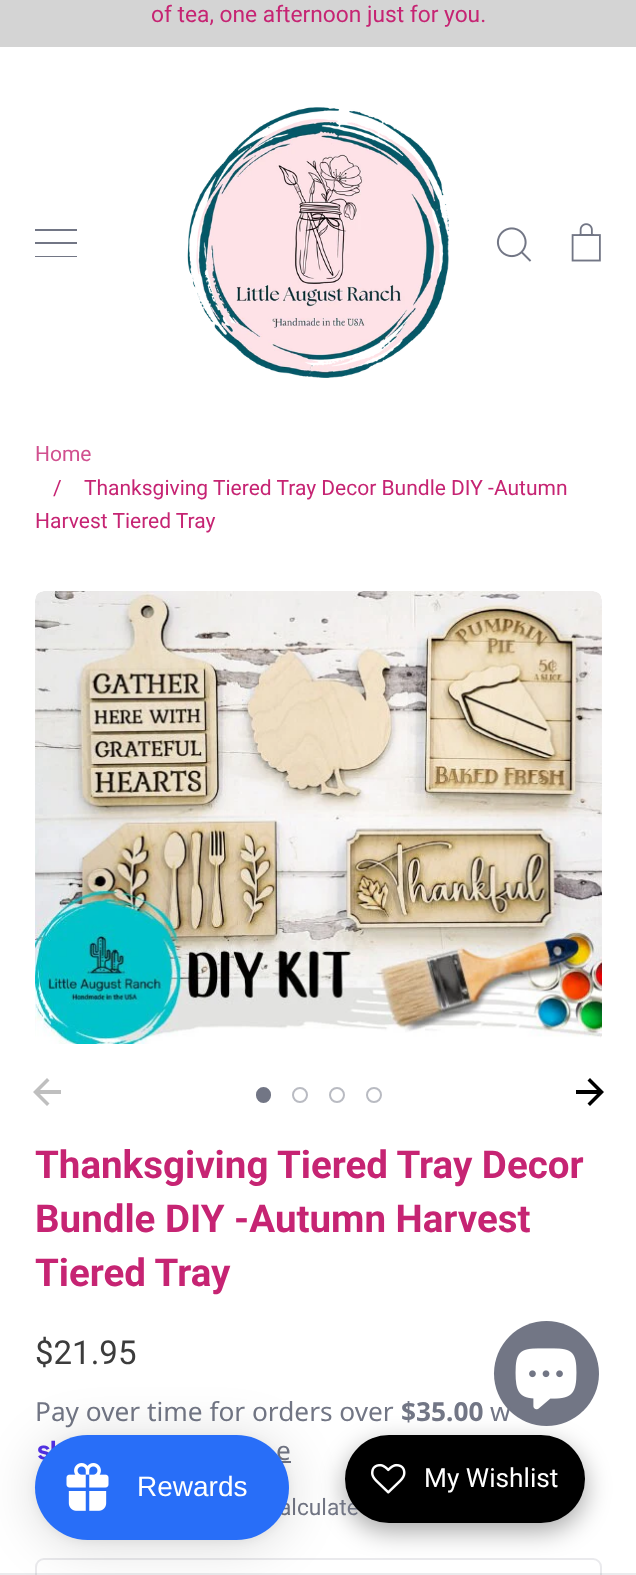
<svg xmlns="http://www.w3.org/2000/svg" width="636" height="1575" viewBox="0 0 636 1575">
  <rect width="100%" height="100%" fill="#fff"/>
  <path d="M0 0h636v47H0z" fill="#d4d4d4"/>
  <path d="M35 229h42v2H35z" fill="#727685"/>
  <path d="M35 242h42v2H35z" fill="#727685"/>
  <path d="M35 256h42v1H35z" fill="#727685"/>
  <image x="187" y="107" width="262" height="271" href="img/1.png"/>
  <image x="496" y="227" width="36" height="35" href="img/2.png"/>
  <image x="571" y="223" width="30" height="39" href="img/3.png"/>
  <rect x="36" y="1559" width="565" height="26" rx="8" fill="none" stroke="#eaeaed" stroke-width="2"/>
  <path d="M0 1573h636v2H0z" fill="#72768526"/>
  <image x="35" y="591" width="567" height="453" href="img/4.png"/>
  <path d="M61 1090H40L49.5 1080.5L47 1078L33 1092L47 1106L49.5 1103.5L40 1094H61Z" fill="#bfbfbf"/>
  <path d="M590 1078L587.5 1080.5L597 1090H576V1094H597L587.5 1103.5L590 1106L604 1092Z" fill="#000"/>
  <rect x="257" y="1088" width="13" height="14" rx="6.5" fill="#727685" stroke="#727685" stroke-width="2"/>
  <circle cx="300" cy="1095" r="7" fill="none" stroke="#b9bbc2" stroke-width="2"/>
  <circle cx="337" cy="1095" r="7" fill="none" stroke="#b9bbc2" stroke-width="2"/>
  <circle cx="374" cy="1095" r="7" fill="none" stroke="#b9bbc2" stroke-width="2"/>
  <image x="38" y="1440" width="19" height="20" href="img/5.png"/>
  <path d="M281 1461h10v2H281z" fill="#727685"/>
  <rect x="345" y="1444" width="240" height="87" rx="43.5" fill="#00000059" filter="blur(13px)"/>
  <circle cx="546.5" cy="1373.5" r="52.5" fill="#727685"/>
  <image x="515" y="1348" width="62" height="62" href="img/6.png"/>
  <rect x="35" y="1437" width="254" height="105" rx="52.5" fill="#0000000d" filter="blur(5px)"/>
  <text x="151" y="22" font-family="Roboto" font-size="22.75" fill="#c62473">of tea, one afternoon just for you.</text>
  <text x="35" y="461" font-family="Roboto" font-size="21" fill="#d1508f">Home</text>
  <g font-family="Roboto" font-size="21" fill="#c62473">
    <text x="53" y="495">/</text>
    <text x="84" y="495">Thanksgiving Tiered Tray Decor Bundle DIY -Autumn</text>
    <text x="35" y="528">Harvest Tiered Tray</text>
  </g>
  <g font-family="Roboto" font-size="38.5" font-weight="bold" fill="#c62473">
    <text x="35" y="1178">Thanksgiving Tiered Tray Decor</text>
    <text x="35" y="1232">Bundle DIY -Autumn Harvest</text>
    <text x="35" y="1286">Tiered Tray</text>
  </g>
  <text x="35" y="1364" font-family="Roboto" font-size="33" fill="#3c3c3c">$21.95</text>
  <text x="35" y="1421" font-family="Noto Sans" font-size="26.25" fill="#727685">Pay over time for orders over</text>
  <text x="401" y="1421" font-family="Noto Sans" font-size="26.25" font-weight="bold" fill="#727685">$35.00</text>
  <g font-family="Noto Sans" font-size="26.25" fill="#727685">
    <text x="490" y="1421">w</text>
    <text x="276" y="1460">e</text>
  </g>
  <text x="279" y="1515" font-family="Roboto" font-size="22.75" fill="#727685">alculate</text>
  <rect x="345" y="1435" width="240" height="88" rx="44" fill="#000"/>
  <rect x="35" y="1439" width="254" height="105" rx="52.5" fill="#00000026" filter="blur(26px)"/>
  <rect x="35" y="1435" width="254" height="105" rx="52.5" fill="#286ef8"/>
  <image x="66" y="1463" width="43" height="48" href="img/7.png"/>
  <text x="137" y="1496" font-family="Liberation Sans" font-size="28" fill="#fff">Rewards</text>
  <image x="371" y="1463" width="35" height="31" href="img/8.png"/>
  <text x="424" y="1487" font-family="Roboto" font-size="26.25" fill="#fff">My Wishlist</text>
</svg>
